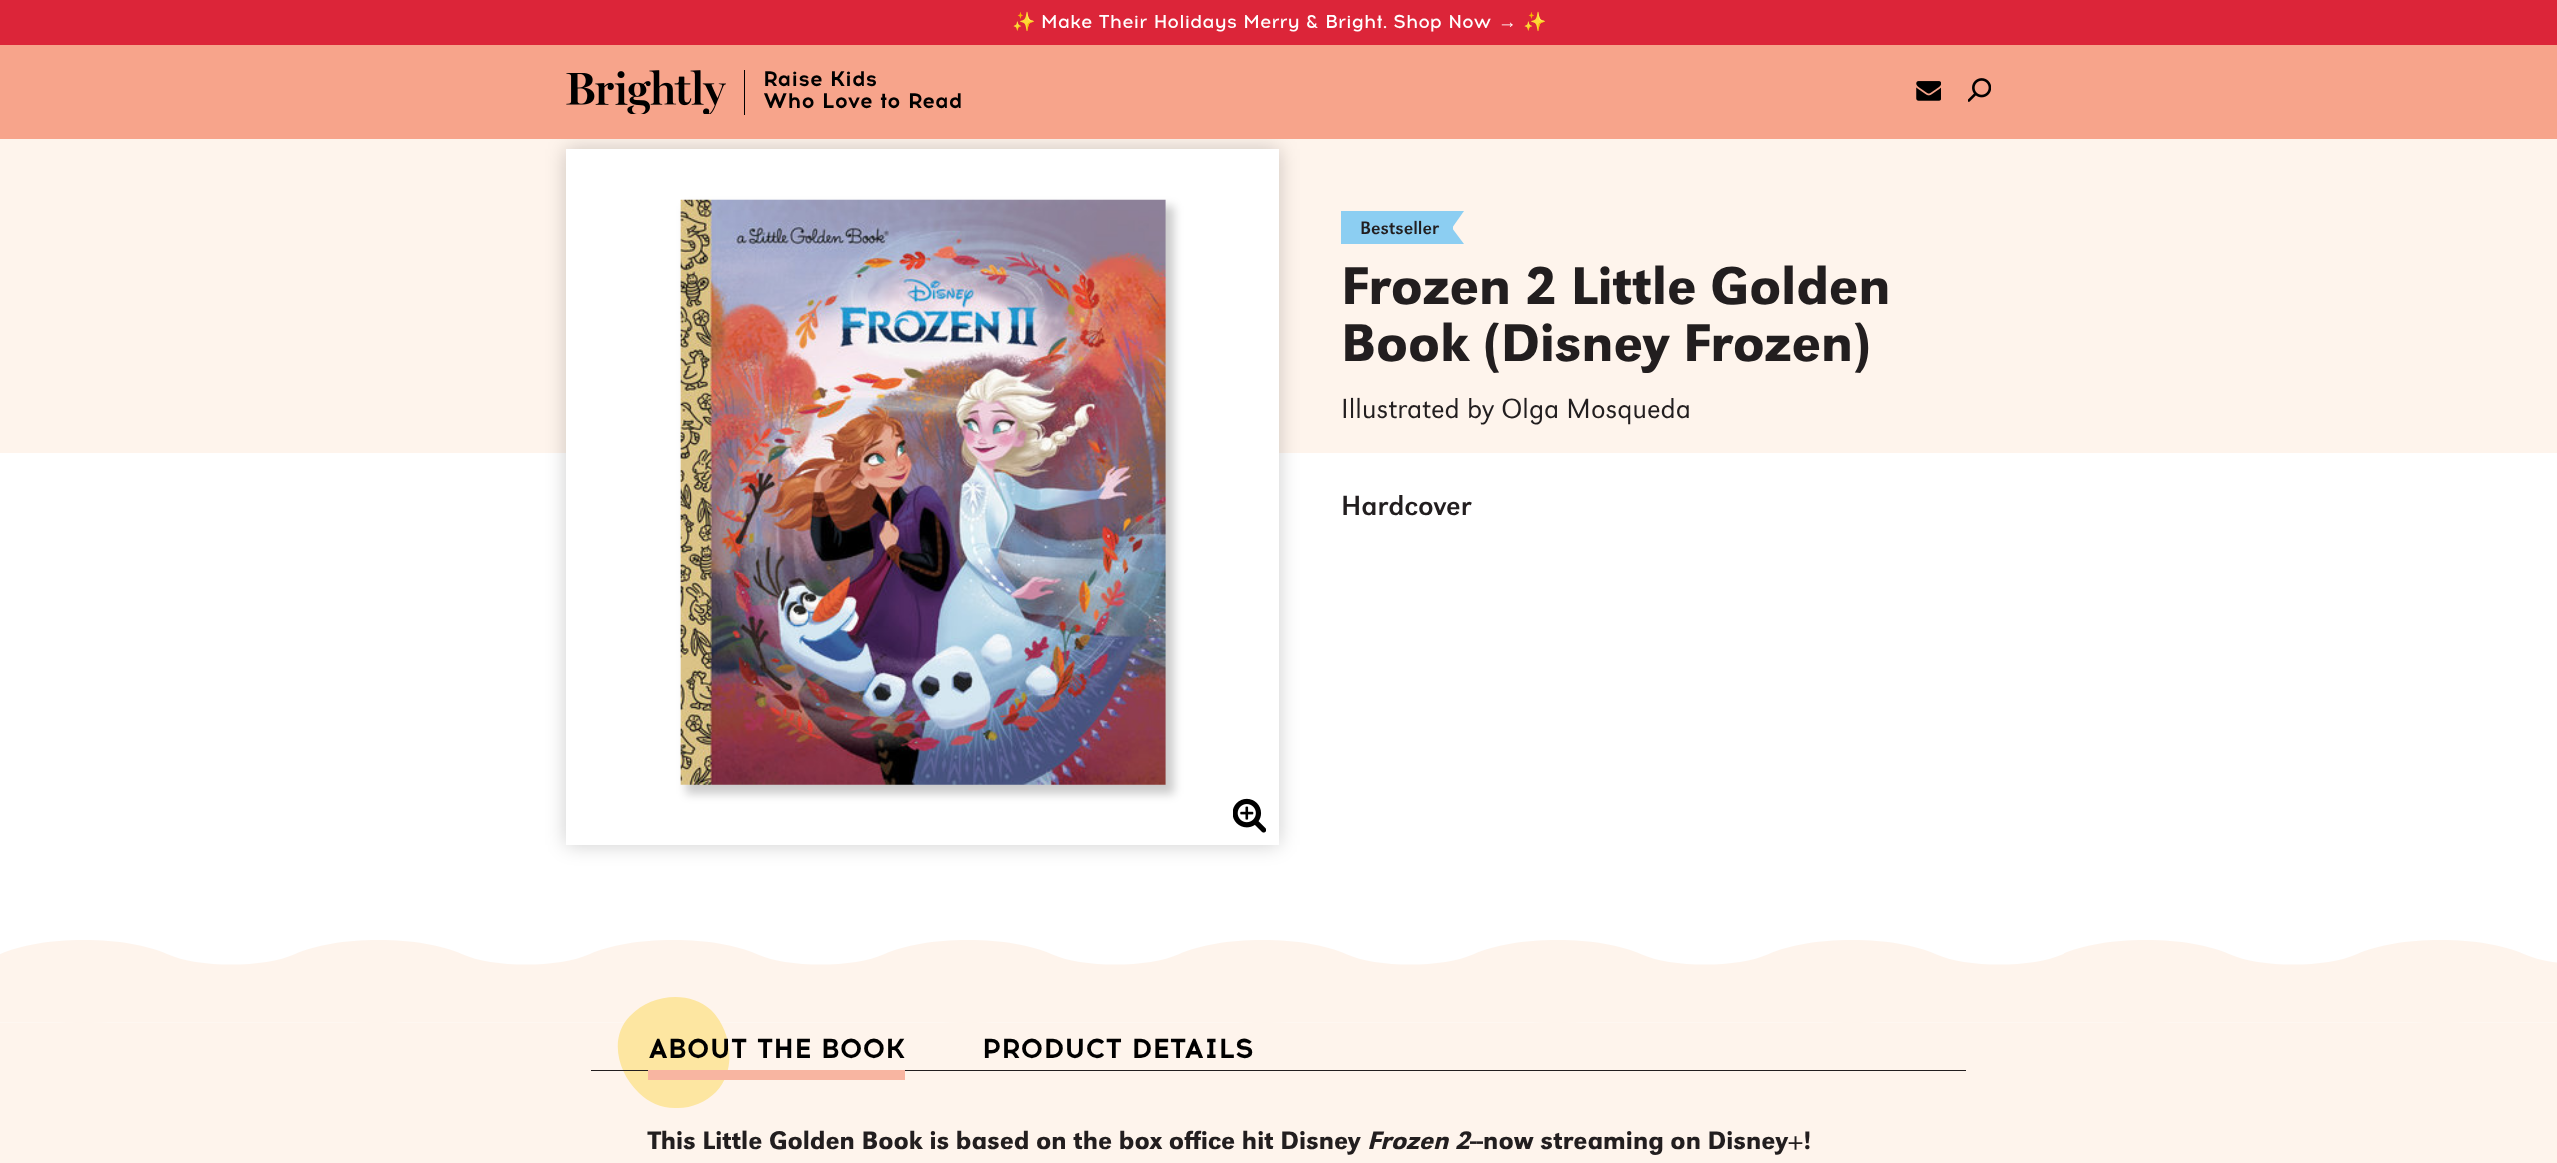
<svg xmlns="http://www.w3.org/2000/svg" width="2557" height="1163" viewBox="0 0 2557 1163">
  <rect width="100%" height="100%" fill="#fff"/>
  <path d="M0 139h2557v314H0z" fill="#fef4ec"/>
  <path d="M566 149h713v696H566z" fill="#00000033" filter="blur(10px)"/>
  <path d="M0 45h2557v94H0z" fill="#f7a48b"/>
  <path d="M0 0h2557v45H0z" fill="#dc2539"/>
  <image x="566" y="70" width="160" height="44" href="img/1.png"/>
  <path d="M744 70h1v45H744z" fill="#000"/>
  <image x="1916" y="81" width="25" height="20" href="img/2.png"/>
  <image x="1968" y="78" width="23" height="24" href="img/3.png"/>
  <path d="M566 149h713v696H566z" fill="#fff"/>
  <path d="M686 206h488v588H686z" fill="#00000033" filter="blur(5px)"/>
  <image x="680" y="199" width="486" height="586" href="img/4.png"/>
  <image x="1233" y="798" width="33" height="35" href="img/5.png"/>
  <path d="M1341 211h112v33H1341z" fill="#8ccef2"/>
  <path d="M1341 211H1464L1452 228H1358Z" fill="#8ccef2"/>
  <path d="M1464 244H1341L1358 228H1452Z" fill="#8ccef2"/>
  <path d="M0 1022h2557v141H0z" fill="#fef4ec"/>
  <image x="0" y="940" width="2557" height="83" href="img/6.png"/>
  <path d="M711 1010C732 1031 737 1070 716 1092C706 1102 692 1108 678 1108C663 1109 649 1103 639 1093C617 1072 609 1037 630 1016C651 994 689 990 711 1010Z" fill="#fde6a1"/>
  <path d="M591 1070h1375v1H591z" fill="#221e1f"/>
  <path d="M648 1070h257v10H648z" fill="#f8b5a1"/>
  <text x="1012" y="28" font-family="Noto Color Emoji" font-size="18.75" fill="#fff">✨</text>
  <text x="1041" y="28" font-family="'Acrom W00'" font-size="18.75" fill="#fff">Make Their Holidays Merry &amp; Bright. Shop Now</text>
  <text x="1498" y="28" font-family="Liberation Sans" font-size="18.75" fill="#fff">→</text>
  <text x="1523" y="28" font-family="Noto Color Emoji" font-size="18.75" fill="#fff">✨</text>
  <g font-family="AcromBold" font-size="21.25" fill="#000">
    <text x="763" y="86">Raise Kids</text>
    <text x="763" y="108">Who Love to Read</text>
  </g>
  <text x="1360" y="234" font-family="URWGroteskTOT" font-size="18.75" fill="#221e1f">Bestseller</text>
  <g font-family="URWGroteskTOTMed" font-size="55" font-weight="500" fill="#221e1f">
    <text x="1341" y="304">Frozen 2 Little Golden</text>
    <text x="1341" y="361">Book (Disney Frozen)</text>
  </g>
  <text x="1341" y="418" font-family="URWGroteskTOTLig" font-size="28.75" font-weight="300" fill="#221e1f">Illustrated by Olga Mosqueda</text>
  <text x="1341" y="515" font-family="URWGroteskTOT" font-size="28.75" fill="#221e1f">Hardcover</text>
  <g font-family="AcromBold" font-size="27.5" fill="#000">
    <text x="648" y="1058">ABOUT THE BOOK</text>
    <text x="982" y="1058">PRODUCT DETAILS</text>
  </g>
  <text x="648" y="1149" font-family="URWGroteskTOTMed" font-size="26.25" font-weight="500" fill="#221e1f">This Little Golden Book is based on the box office hit Disney</text>
  <text x="1367" y="1149" font-family="URWGroteskTOTMed" font-size="26.25" font-weight="500" font-style="italic" fill="#221e1f">Frozen 2</text>
  <text x="1470" y="1149" font-family="URWGroteskTOTMed" font-size="26.25" font-weight="500" fill="#221e1f">--now streaming on Disney+!</text>
</svg>
